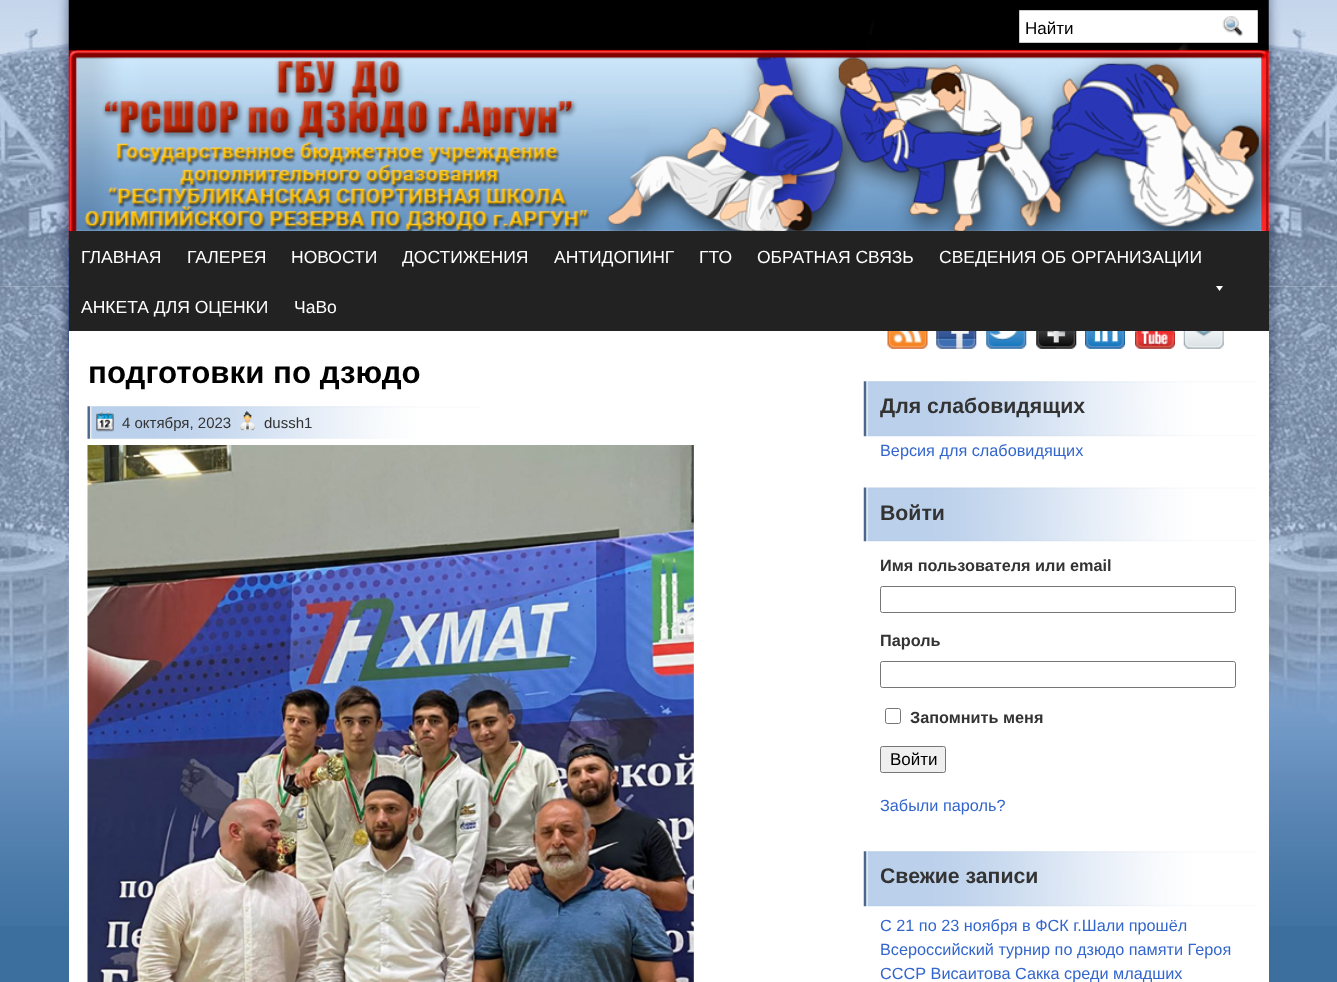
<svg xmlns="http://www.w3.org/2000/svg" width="1337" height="982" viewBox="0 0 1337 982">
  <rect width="100%" height="100%" fill="#3c6f9d"/>
  <image x="0" y="286" width="1337" height="640" href="img/1.png"/>
  <image x="0" y="0" width="1337" height="287" href="img/2.png"/>
  <image x="0" y="286" width="1337" height="454" href="img/3.png"/>
  <image x="68" y="0" width="1201" height="353" href="img/4.png"/>
  <path d="M1019.5 10.5h238v32H1019.5z" fill="#fff" stroke="#ccc"/>
  <image x="1222" y="16" width="21" height="21" href="img/5.png"/>
  <path d="M69 231h1200v100H69z" fill="#222"/>
  <path d="M1223 286L1219.5 291L1216 286Z" fill="#fff"/>
  <path d="M69 331h1200v651H69z" fill="#fff"/>
  <image x="87" y="406" width="394" height="33" href="img/6.png"/>
  <image x="96" y="411" width="18" height="21" href="img/7.png"/>
  <image x="240" y="411" width="16" height="20" href="img/8.png"/>
  <image x="87" y="445" width="607" height="537" href="img/9.png"/>
  <image x="887" y="331" width="41" height="18" href="img/10.png"/>
  <image x="936" y="331" width="41" height="18" href="img/11.png"/>
  <image x="986" y="331" width="41" height="18" href="img/12.png"/>
  <image x="1036" y="331" width="41" height="18" href="img/13.png"/>
  <image x="1085" y="331" width="40" height="18" href="img/14.png"/>
  <image x="1135" y="331" width="40" height="18" href="img/15.png"/>
  <image x="1183" y="331" width="41" height="18" href="img/16.png"/>
  <image x="863" y="381" width="394" height="56" href="img/17.png"/>
  <image x="863" y="487" width="394" height="55" href="img/18.png"/>
  <rect x="880.5" y="586.5" width="355" height="26" rx="2" fill="none" stroke="#767676"/>
  <rect x="880.5" y="661.5" width="355" height="26" rx="2" fill="none" stroke="#767676"/>
  <rect x="885.5" y="708.5" width="15" height="15" rx="2" fill="none" stroke="#767676"/>
  <rect x="880.5" y="746.5" width="65" height="26" rx="2" fill="#efefef" stroke="#767676"/>
  <image x="863" y="851" width="394" height="56" href="img/17.png"/>
  <text x="1025" y="34" font-family="Liberation Sans" font-size="17" fill="#000">Найти</text>
  <g font-family="Liberation Sans" font-size="17.5" fill="#fff">
    <text x="81" y="263">ГЛАВНАЯ</text>
    <text x="187" y="263">ГАЛЕРЕЯ</text>
    <text x="291" y="263">НОВОСТИ</text>
    <text x="402" y="263">ДОСТИЖЕНИЯ</text>
    <text x="554" y="263">АНТИДОПИНГ</text>
    <text x="699" y="263">ГТО</text>
    <text x="757" y="263">ОБРАТНАЯ СВЯЗЬ</text>
    <text x="939" y="263">СВЕДЕНИЯ ОБ ОРГАНИЗАЦИИ</text>
    <text x="81" y="313">АНКЕТА ДЛЯ ОЦЕНКИ</text>
    <text x="294" y="313">ЧаВо</text>
  </g>
  <text x="88" y="383" font-family="Liberation Sans" font-size="31.25" font-weight="bold" fill="#000">подготовки по дзюдо</text>
  <g font-family="Liberation Sans" font-size="15" fill="#333">
    <text x="122" y="428">4 октября, 2023</text>
    <text x="264" y="428">dussh1</text>
  </g>
  <text x="880" y="413" font-family="Liberation Sans" font-size="21.25" font-weight="bold" fill="#333">Для слабовидящих</text>
  <text x="880" y="456" font-family="Liberation Sans" font-size="16.25" fill="#36c">Версия для слабовидящих</text>
  <text x="880" y="520" font-family="Liberation Sans" font-size="21.25" font-weight="bold" fill="#333">Войти</text>
  <g font-family="Liberation Sans" font-size="16.25" font-weight="bold" fill="#333">
    <text x="880" y="571">Имя пользователя или email</text>
    <text x="880" y="646">Пароль</text>
    <text x="910" y="723">Запомнить меня</text>
  </g>
  <text x="890" y="765" font-family="Liberation Sans" font-size="17" fill="#000">Войти</text>
  <text x="880" y="811" font-family="Liberation Sans" font-size="16.25" fill="#36c">Забыли пароль?</text>
  <text x="880" y="883" font-family="Liberation Sans" font-size="21.25" font-weight="bold" fill="#333">Свежие записи</text>
  <g font-family="Liberation Sans" font-size="16.25" fill="#36c">
    <text x="880" y="931">С 21 по 23 ноября в ФСК г.Шали прошёл</text>
    <text x="880" y="955">Всероссийский турнир по дзюдо памяти Героя</text>
    <text x="880" y="979">СССР Висаитова Сакка среди младших</text>
  </g>
</svg>
